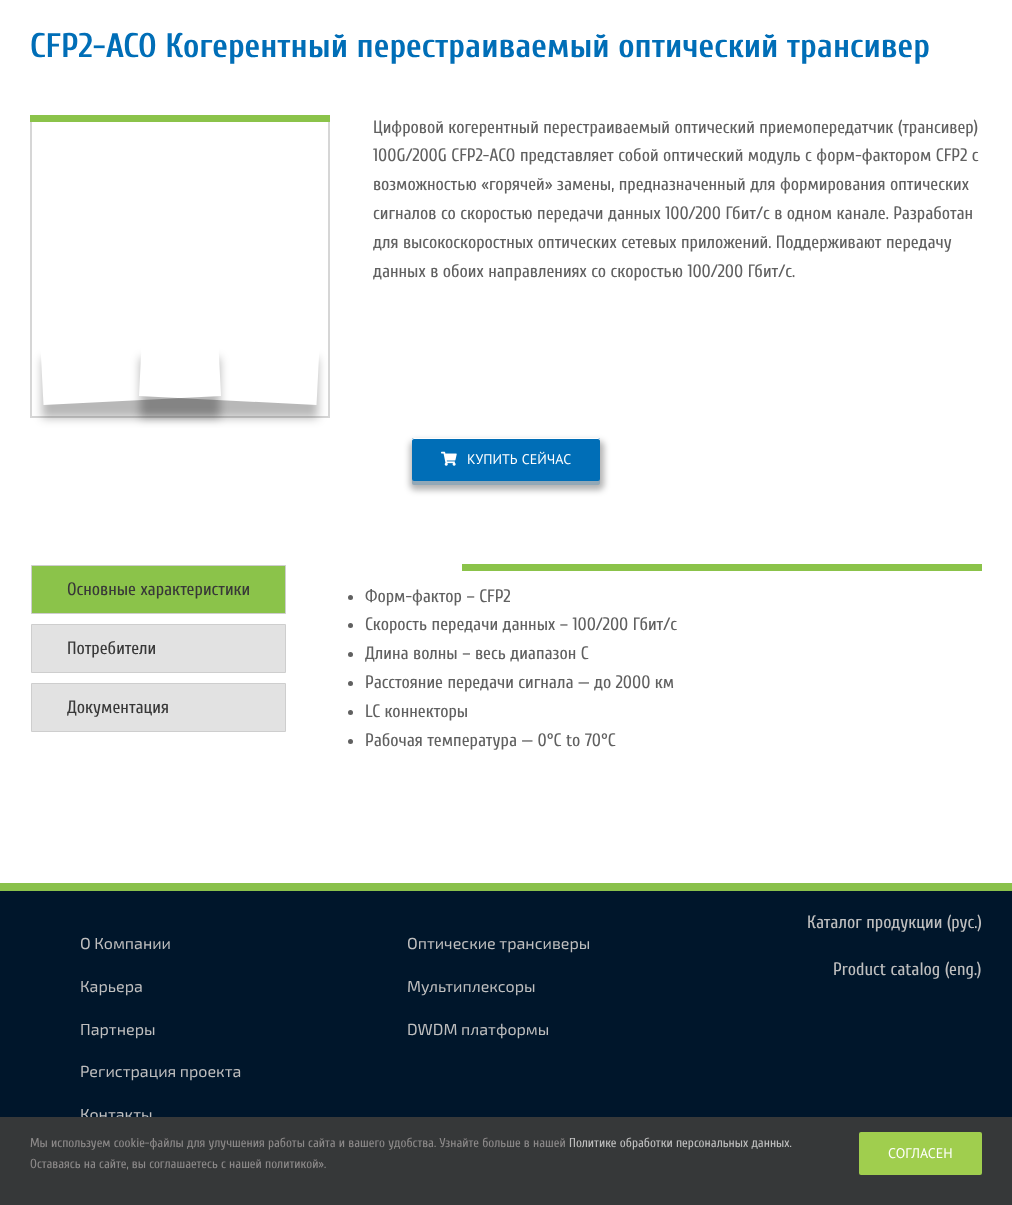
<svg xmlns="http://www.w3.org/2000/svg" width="1012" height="1205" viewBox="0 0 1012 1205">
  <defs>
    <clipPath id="clip1"><path d="M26 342H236V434H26ZM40.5 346L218 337L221 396L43.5 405Z" clip-rule="evenodd"/></clipPath>
    <clipPath id="clip2"><path d="M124 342H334V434H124ZM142 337L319.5 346L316.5 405L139 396Z" clip-rule="evenodd"/></clipPath>
  </defs>
  <rect width="100%" height="100%" fill="#fff"/>
  <path d="M31 119h298v298H31z" fill="none" stroke="#d6d6d6" stroke-width="2"/>
  <path d="M30 115h300v7H30z" fill="#8bc34a"/>
  <g clip-path="url(#clip1)">
    <path d="M42 358h178v60H42z" fill="#00000047" filter="blur(5px)"/>
  </g>
  <g clip-path="url(#clip2)">
    <path d="M140 358h178v60H140z" fill="#00000047" filter="blur(5px)"/>
  </g>
  <rect x="410" y="441" width="194" height="49" rx="5" fill="#0000004d" filter="blur(3px)"/>
  <path d="M412 479V483C412 484 413 485 414 485H598C599 485 600 484 600 483V479C600 480 599 481 598 481H414C413 481 412 480 412 479Z" fill="#92a8b7"/>
  <rect x="412" y="438" width="188" height="43" rx="2" fill="#006eb7"/>
  <path d="M414 439H598C599 439 600 440 600 441V440C600 439 599 438 598 438H414C413 438 412 439 412 440V441C412 440 413 439 414 439Z" fill="#fff"/>
  <image x="441" y="451" width="16" height="15" href="img/1.png"/>
  <path d="M462 564h520v7H462z" fill="#8bc34a"/>
  <path d="M31.5 565.5h254v48H31.5z" fill="#8bc34a" stroke="#cecece"/>
  <path d="M31.5 624.5h254v48H31.5z" fill="#e2e2e2" stroke="#cecece"/>
  <path d="M31.5 683.5h254v48H31.5z" fill="#e2e2e2" stroke="#cecece"/>
  <circle cx="350.5" cy="597.5" r="2.5" fill="#606060"/>
  <circle cx="350.5" cy="625.5" r="2.5" fill="#606060"/>
  <circle cx="350.5" cy="654.5" r="2.5" fill="#606060"/>
  <circle cx="350.5" cy="683.5" r="2.5" fill="#606060"/>
  <circle cx="350.5" cy="712.5" r="2.5" fill="#606060"/>
  <circle cx="350.5" cy="741.5" r="2.5" fill="#606060"/>
  <path d="M0 891h1012v226H0z" fill="#00162b"/>
  <path d="M0 883h1012v8H0z" fill="#8ac14b"/>
  <text x="30" y="57" font-family="Cuprum" font-size="34" font-weight="bold" fill="#006eb7">CFP2-ACO Когерентный перестраиваемый оптический трансивер</text>
  <g font-family="Cuprum" font-size="18" fill="#606060">
    <text x="373" y="133">Цифровой когерентный перестраиваемый оптический приемопередатчик (трансивер)</text>
    <text x="373" y="161">100G/200G CFP2-ACO представляет собой оптический модуль с форм-фактором CFP2 с</text>
    <text x="373" y="190">возможностью «горячей» замены, предназначенный для формирования оптических</text>
    <text x="373" y="219">сигналов со скоростью передачи данных 100/200 Гбит/с в одном канале. Разработан</text>
    <text x="373" y="248">для высокоскоростных оптических сетевых приложений. Поддерживают передачу</text>
    <text x="373" y="277">данных в обоих направлениях со скоростью 100/200 Гбит/с.</text>
  </g>
  <text x="467" y="464" word-spacing="1" font-family="PT Sans" font-size="14" fill="#fff">КУПИТЬ СЕЙЧАС</text>
  <g font-family="Cuprum" font-size="18" fill="#383838">
    <text x="67" y="595">Основные характеристики</text>
    <text x="67" y="654">Потребители</text>
    <text x="67" y="713">Документация</text>
  </g>
  <g font-family="Cuprum" font-size="18" fill="#606060">
    <text x="365" y="602">Форм-фактор – CFP2</text>
    <text x="365" y="630">Скорость передачи данных – 100/200 Гбит/с</text>
    <text x="365" y="659">Длина волны – весь диапазон C</text>
    <text x="365" y="688">Расстояние передачи сигнала — до 2000 км</text>
    <text x="365" y="717">LC коннекторы</text>
    <text x="365" y="746">Рабочая температура — 0°C to 70°C</text>
  </g>
  <g font-family="'Exo 2'" font-size="16" fill="#bfbfbf">
    <text x="80" y="949">О Компании</text>
    <text x="80" y="992">Карьера</text>
    <text x="80" y="1035">Партнеры</text>
    <text x="80" y="1077">Регистрация проекта</text>
    <text x="80" y="1120">Контакты</text>
    <text x="407" y="949">Оптические трансиверы</text>
    <text x="407" y="992">Мультиплексоры</text>
    <text x="407" y="1035">DWDM платформы</text>
  </g>
  <g font-family="Cuprum" font-size="18" fill="#bfbfbf">
    <text x="807" y="928">Каталог продукции (рус.)</text>
    <text x="833" y="975">Product catalog (eng.)</text>
  </g>
  <path d="M0 1117h1012v88H0z" fill="#363839"/>
  <text x="30" y="1147" font-family="Cuprum" font-size="13" fill="#8c8989">Мы используем cookie-файлы для улучшения работы сайта и вашего удобства. Узнайте больше в нашей</text>
  <text x="569" y="1147" font-family="Cuprum" font-size="13" fill="#bfbfbf">Политике обработки персональных данных.</text>
  <text x="30" y="1168" font-family="Cuprum" font-size="13" fill="#8c8989">Оставаясь на сайте, вы соглашаетесь с нашей политикой».</text>
  <rect x="859" y="1132" width="123" height="43" rx="2" fill="#a0ce4e"/>
  <text x="888" y="1158" font-family="PT Sans" font-size="14" fill="#fff">СОГЛАСЕН</text>
</svg>
